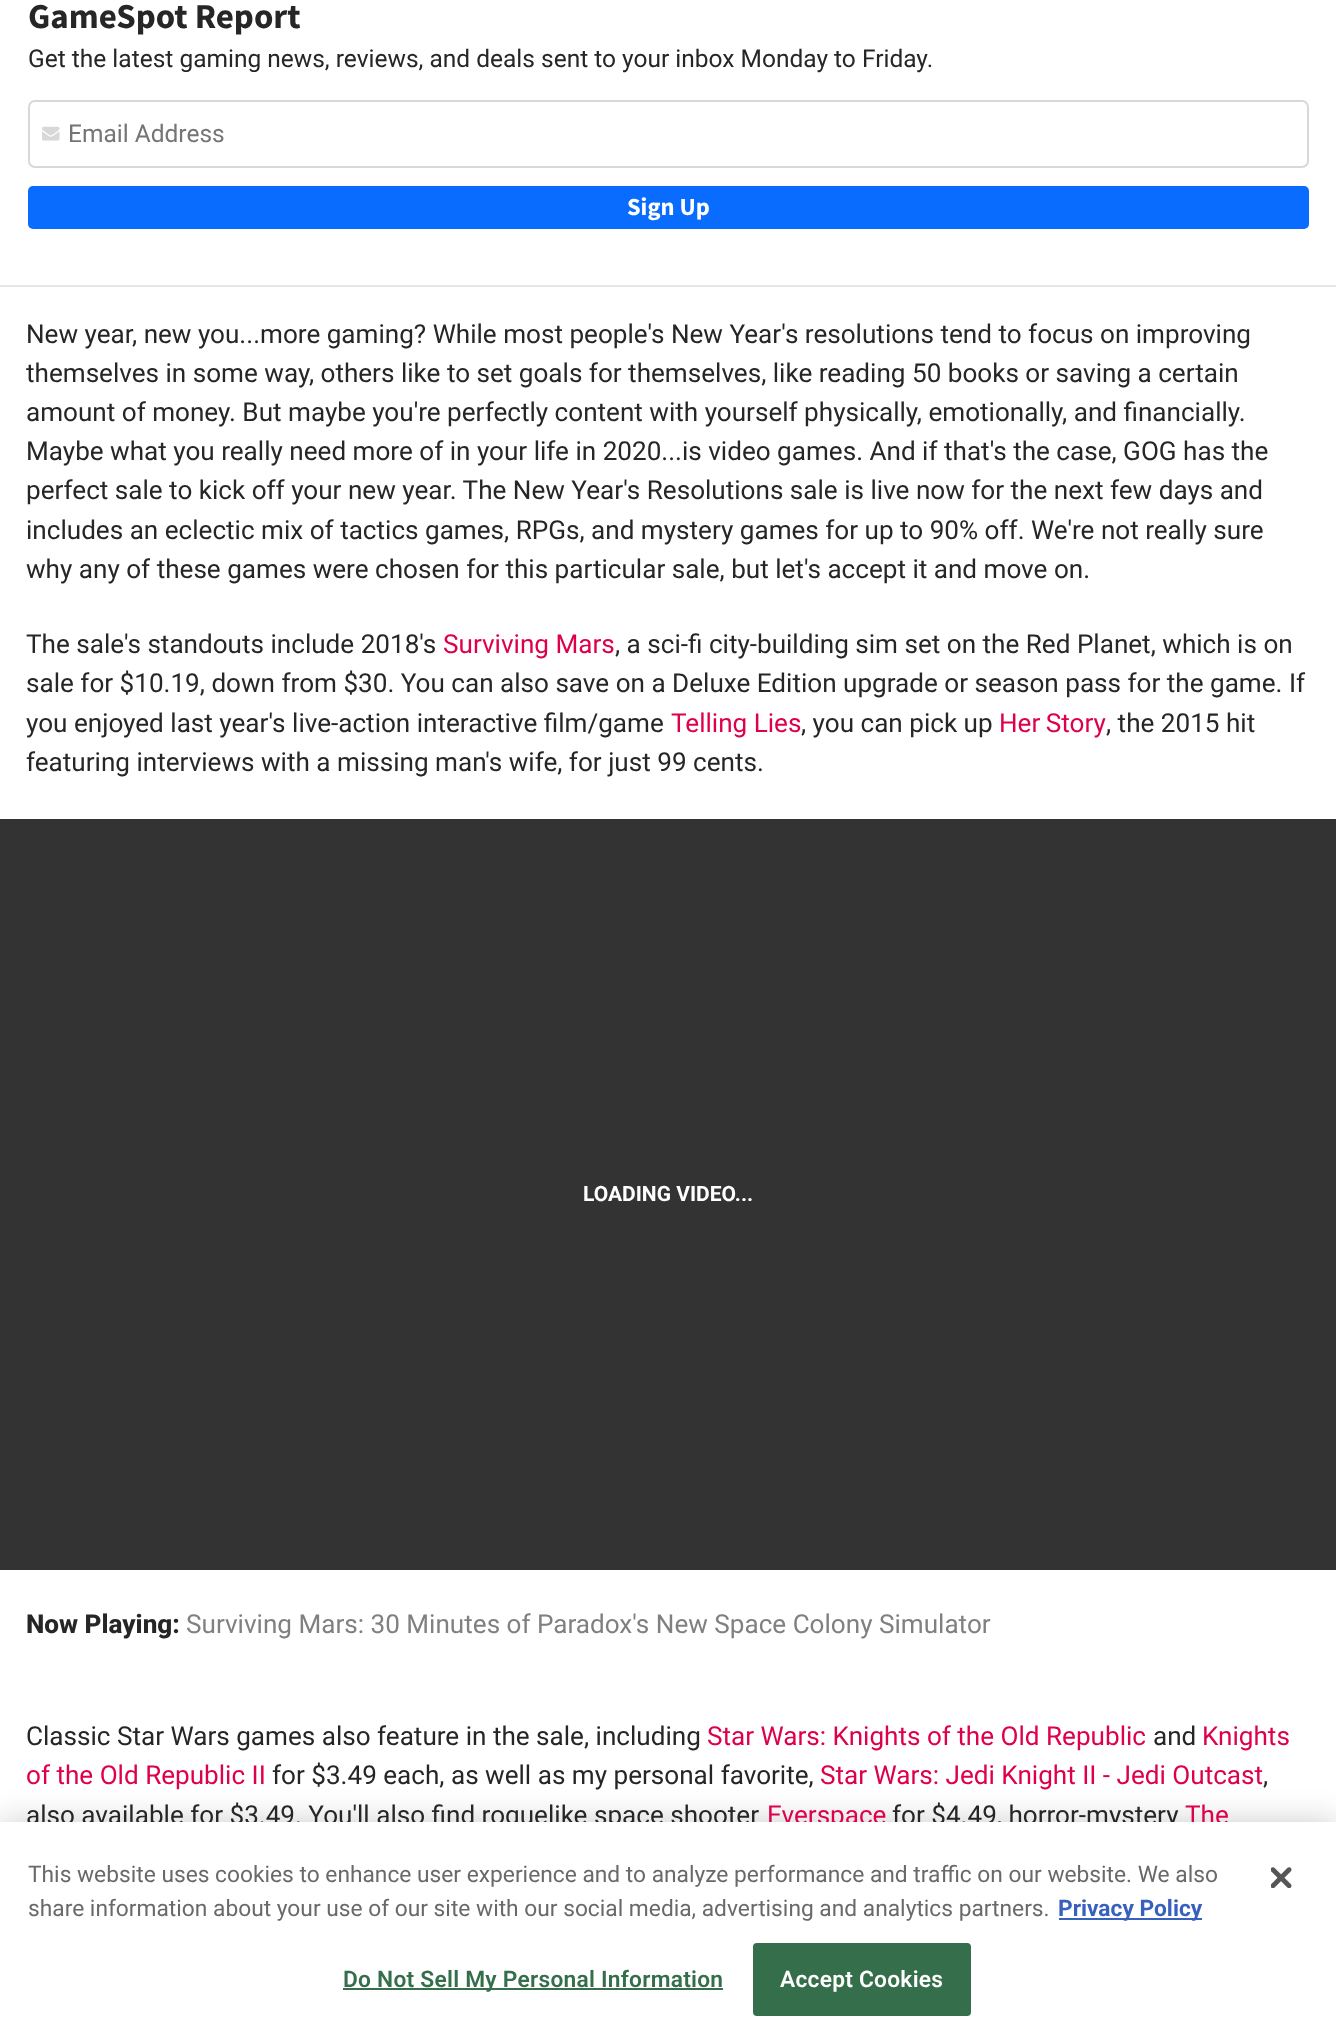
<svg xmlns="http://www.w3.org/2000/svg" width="1336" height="2044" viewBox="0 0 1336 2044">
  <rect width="100%" height="100%" fill="#fff"/>
  <path d="M0 285h1336v2H0z" fill="#e6e6e6"/>
  <rect x="29" y="101" width="1279" height="66" rx="6" fill="none" stroke="#d8d8d8" stroke-width="2"/>
  <image x="42" y="126" width="18" height="15" href="img/1.png"/>
  <rect x="28" y="186" width="1281" height="43" rx="5" fill="#0a6cff"/>
  <path d="M0 819h1336v751H0z" fill="#333"/>
  <path d="M0 1822h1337v222H0z" fill="#00000033" filter="blur(16px)"/>
  <text x="28" y="28" font-family="Source Sans Pro" font-size="35" font-weight="bold" fill="#262626">GameSpot Report</text>
  <text x="28" y="67" font-family="Roboto" font-size="24.5" fill="#262626">Get the latest gaming news, reviews, and deals sent to your inbox Monday to Friday.</text>
  <text x="68" y="142" font-family="Roboto" font-size="24.5" fill="#757575">Email Address</text>
  <text x="627" y="215" font-family="Source Sans Pro" font-size="24.5" font-weight="bold" fill="#fff">Sign Up</text>
  <g font-family="Roboto" font-size="26.1" fill="#262626">
    <text x="26" y="343">New year, new you...more gaming? While most people's New Year's resolutions tend to focus on improving</text>
    <text x="26" y="382">themselves in some way, others like to set goals for themselves, like reading 50 books or saving a certain</text>
    <text x="26" y="421">amount of money. But maybe you're perfectly content with yourself physically, emotionally, and financially.</text>
    <text x="26" y="460">Maybe what you really need more of in your life in 2020...is video games. And if that's the case, GOG has the</text>
    <text x="26" y="499">perfect sale to kick off your new year. The New Year's Resolutions sale is live now for the next few days and</text>
    <text x="26" y="539">includes an eclectic mix of tactics games, RPGs, and mystery games for up to 90% off. We're not really sure</text>
    <text x="26" y="578">why any of these games were chosen for this particular sale, but let's accept it and move on.</text>
    <text x="26" y="653">The sale's standouts include 2018's</text>
  </g>
  <text x="443" y="653" font-family="Roboto" font-size="26.1" fill="#de004a">Surviving Mars</text>
  <g font-family="Roboto" font-size="26.1" fill="#262626">
    <text x="615" y="653">, a sci-fi city-building sim set on the Red Planet, which is on</text>
    <text x="26" y="692">sale for $10.19, down from $30. You can also save on a Deluxe Edition upgrade or season pass for the game. If</text>
    <text x="26" y="732">you enjoyed last year's live-action interactive film/game</text>
  </g>
  <text x="671" y="732" font-family="Roboto" font-size="26.1" fill="#de004a">Telling Lies</text>
  <text x="801" y="732" font-family="Roboto" font-size="26.1" fill="#262626">, you can pick up</text>
  <text x="999" y="732" word-spacing="-1" font-family="Roboto" font-size="26.1" fill="#de004a">Her Story</text>
  <g font-family="Roboto" font-size="26.1" fill="#262626">
    <text x="1106" y="732">, the 2015 hit</text>
    <text x="26" y="771">featuring interviews with a missing man's wife, for just 99 cents.</text>
  </g>
  <text x="583" y="1201" font-family="Roboto" font-size="21" font-weight="bold" fill="#fff">LOADING VIDEO...</text>
  <text x="26" y="1633" font-family="Roboto" font-size="26.1" font-weight="800" fill="#262626">Now Playing:</text>
  <text x="186" y="1633" font-family="Roboto" font-size="26.1" fill="#808080">Surviving Mars: 30 Minutes of Paradox's New Space Colony Simulator</text>
  <text x="26" y="1745" font-family="Roboto" font-size="26.1" fill="#262626">Classic Star Wars games also feature in the sale, including</text>
  <text x="707" y="1745" font-family="Roboto" font-size="26.1" fill="#de004a">Star Wars: Knights of the Old Republic</text>
  <text x="1153" y="1745" font-family="Roboto" font-size="26.1" fill="#262626">and</text>
  <g font-family="Roboto" font-size="26.1" fill="#de004a">
    <text x="1202" y="1745">Knights</text>
    <text x="26" y="1784">of the Old Republic II</text>
  </g>
  <text x="272" y="1784" font-family="Roboto" font-size="26.1" fill="#262626">for $3.49 each, as well as my personal favorite,</text>
  <text x="820" y="1784" font-family="Roboto" font-size="26.1" fill="#de004a">Star Wars: Jedi Knight II - Jedi Outcast</text>
  <g font-family="Roboto" font-size="26.1" fill="#262626">
    <text x="1263" y="1784">,</text>
    <text x="26" y="1824">also available for $3.49. You'll also find roguelike space shooter</text>
  </g>
  <text x="767" y="1824" font-family="Roboto" font-size="26.1" fill="#de004a">Everspace</text>
  <text x="892" y="1824" font-family="Roboto" font-size="26.1" fill="#262626">for $4.49, horror-mystery</text>
  <text x="1185" y="1824" font-family="Roboto" font-size="26.1" fill="#de004a">The</text>
  <path d="M0 1822h1336v222H0z" fill="#fff"/>
  <g font-family="Roboto" font-size="22.75" fill="#696969">
    <text x="28" y="1882">This website uses cookies to enhance user experience and to analyze performance and traffic on our website. We also</text>
    <text x="28" y="1916">share information about your use of our site with our social media, advertising and analytics partners.</text>
  </g>
  <path d="M1059 1918h143v2H1059z" fill="#3860be"/>
  <text x="1058" y="1916" font-family="Roboto" font-size="22.75" font-weight="bold" fill="#3860be">Privacy Policy</text>
  <path d="M343 1988h380v2H343z" fill="#346e4a"/>
  <text x="343" y="1987" font-family="Roboto" font-size="22.75" font-weight="600" letter-spacing="0.25" fill="#346e4a">Do Not Sell My Personal Information</text>
  <rect x="754" y="1944" width="216" height="71" rx="3" fill="#346e4a" stroke="#346e4a" stroke-width="2"/>
  <text x="780" y="1987" font-family="Roboto" font-size="22.75" font-weight="600" letter-spacing="0.25" fill="#fff">Accept Cookies</text>
  <image x="1271" y="1867" width="21" height="21" href="img/2.png"/>
</svg>
